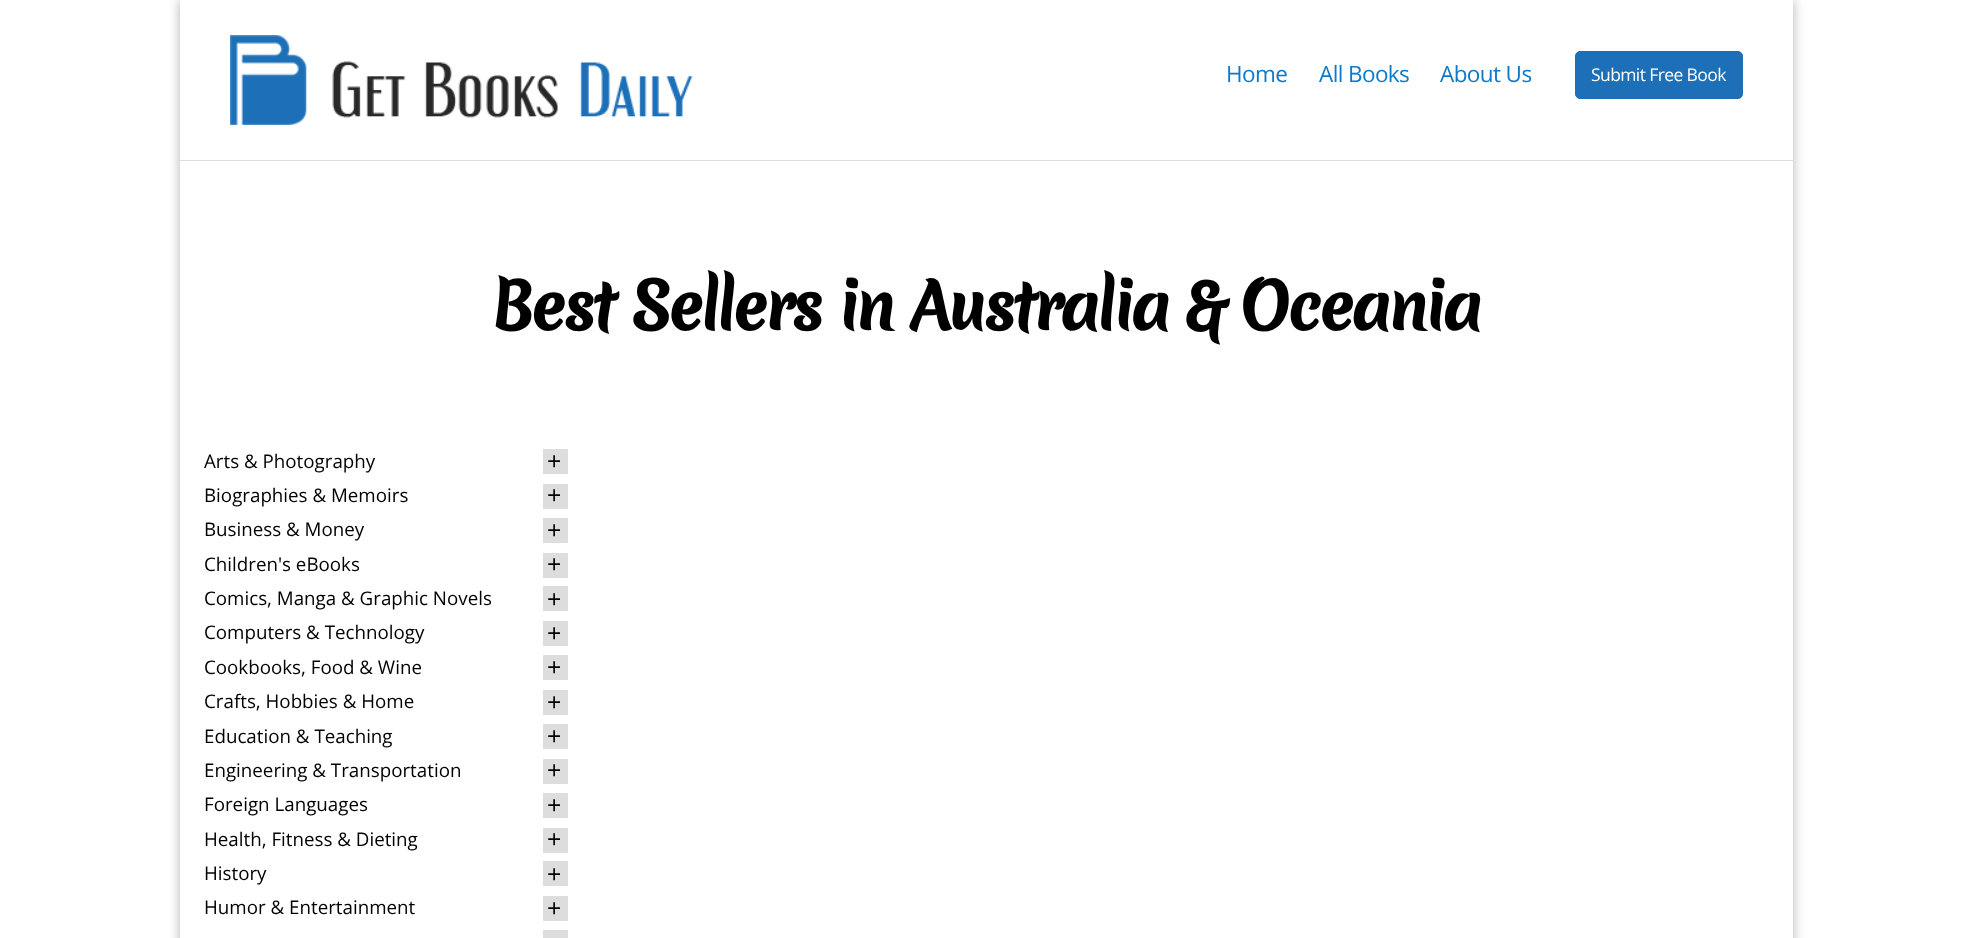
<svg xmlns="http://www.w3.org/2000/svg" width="1971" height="938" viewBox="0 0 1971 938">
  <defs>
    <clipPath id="clip1"><path d="M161 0H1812V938H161ZM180 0H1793V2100H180Z" clip-rule="evenodd"/></clipPath>
  </defs>
  <rect width="100%" height="100%" fill="#fff"/>
  <g clip-path="url(#clip1)">
    <path d="M180 0h1613v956H180z" fill="#0000004d" filter="blur(6px)"/>
  </g>
  <path d="M1792 0h1v160H1792z" fill="#fff"/>
  <path d="M180 160h1613v1H180z" fill="#ddd"/>
  <image x="230" y="35" width="463" height="90" href="img/1.png"/>
  <rect x="1575.5" y="51.5" width="167" height="47" rx="4.5" fill="#1d70b7" stroke="#1d70b7"/>
  <path d="M543 449h25v25H543z" fill="#ddd"/>
  <path d="M543 484h25v25H543z" fill="#ddd"/>
  <path d="M543 518h25v25H543z" fill="#ddd"/>
  <path d="M543 553h25v25H543z" fill="#ddd"/>
  <path d="M543 586h25v25H543z" fill="#ddd"/>
  <path d="M543 621h25v25H543z" fill="#ddd"/>
  <path d="M543 655h25v25H543z" fill="#ddd"/>
  <path d="M543 690h25v25H543z" fill="#ddd"/>
  <path d="M543 724h25v25H543z" fill="#ddd"/>
  <path d="M543 759h25v25H543z" fill="#ddd"/>
  <path d="M543 793h25v25H543z" fill="#ddd"/>
  <path d="M543 828h25v25H543z" fill="#ddd"/>
  <path d="M543 861h25v25H543z" fill="#ddd"/>
  <path d="M543 896h25v25H543z" fill="#ddd"/>
  <path d="M543 930h25v8H543z" fill="#ddd"/>
  <g font-family="Open Sans" font-size="22.5" letter-spacing="-0.6" fill="#0b7aca">
    <text x="1226" y="82">Home</text>
    <text x="1319" y="82">All Books</text>
    <text x="1440" y="82">About Us</text>
  </g>
  <text x="1591" y="81" font-family="Open Sans" font-size="17.5" letter-spacing="-0.6" fill="#fff">Submit Free Book</text>
  <text x="491" y="330" font-family="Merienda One" font-size="62.5" font-weight="bold" letter-spacing="-2.6" fill="#000">Best Sellers in Australia &amp; Oceania</text>
  <text x="204" y="468" font-family="Open Sans" font-size="18.75" fill="#000">Arts &amp; Photography</text>
  <text x="547" y="470" font-family="Open Sans" font-size="25" fill="#000">+</text>
  <text x="204" y="502" font-family="Open Sans" font-size="18.75" fill="#000">Biographies &amp; Memoirs</text>
  <text x="547" y="504" font-family="Open Sans" font-size="25" fill="#000">+</text>
  <text x="204" y="536" font-family="Open Sans" font-size="18.75" fill="#000">Business &amp; Money</text>
  <text x="547" y="539" font-family="Open Sans" font-size="25" fill="#000">+</text>
  <text x="204" y="571" font-family="Open Sans" font-size="18.75" fill="#000">Children's eBooks</text>
  <text x="547" y="573" font-family="Open Sans" font-size="25" fill="#000">+</text>
  <text x="204" y="605" font-family="Open Sans" font-size="18.75" fill="#000">Comics, Manga &amp; Graphic Novels</text>
  <text x="547" y="608" font-family="Open Sans" font-size="25" fill="#000">+</text>
  <text x="204" y="639" font-family="Open Sans" font-size="18.75" fill="#000">Computers &amp; Technology</text>
  <text x="547" y="642" font-family="Open Sans" font-size="25" fill="#000">+</text>
  <text x="204" y="674" font-family="Open Sans" font-size="18.75" fill="#000">Cookbooks, Food &amp; Wine</text>
  <text x="547" y="676" font-family="Open Sans" font-size="25" fill="#000">+</text>
  <text x="204" y="708" font-family="Open Sans" font-size="18.75" fill="#000">Crafts, Hobbies &amp; Home</text>
  <text x="547" y="711" font-family="Open Sans" font-size="25" fill="#000">+</text>
  <text x="204" y="743" font-family="Open Sans" font-size="18.75" fill="#000">Education &amp; Teaching</text>
  <text x="547" y="745" font-family="Open Sans" font-size="25" fill="#000">+</text>
  <text x="204" y="777" font-family="Open Sans" font-size="18.75" fill="#000">Engineering &amp; Transportation</text>
  <text x="547" y="779" font-family="Open Sans" font-size="25" fill="#000">+</text>
  <text x="204" y="811" font-family="Open Sans" font-size="18.75" fill="#000">Foreign Languages</text>
  <text x="547" y="814" font-family="Open Sans" font-size="25" fill="#000">+</text>
  <text x="204" y="846" font-family="Open Sans" font-size="18.75" fill="#000">Health, Fitness &amp; Dieting</text>
  <text x="547" y="848" font-family="Open Sans" font-size="25" fill="#000">+</text>
  <text x="204" y="880" font-family="Open Sans" font-size="18.75" fill="#000">History</text>
  <text x="547" y="883" font-family="Open Sans" font-size="25" fill="#000">+</text>
  <text x="204" y="914" font-family="Open Sans" font-size="18.75" fill="#000">Humor &amp; Entertainment</text>
  <text x="547" y="917" font-family="Open Sans" font-size="25" fill="#000">+</text>
</svg>
